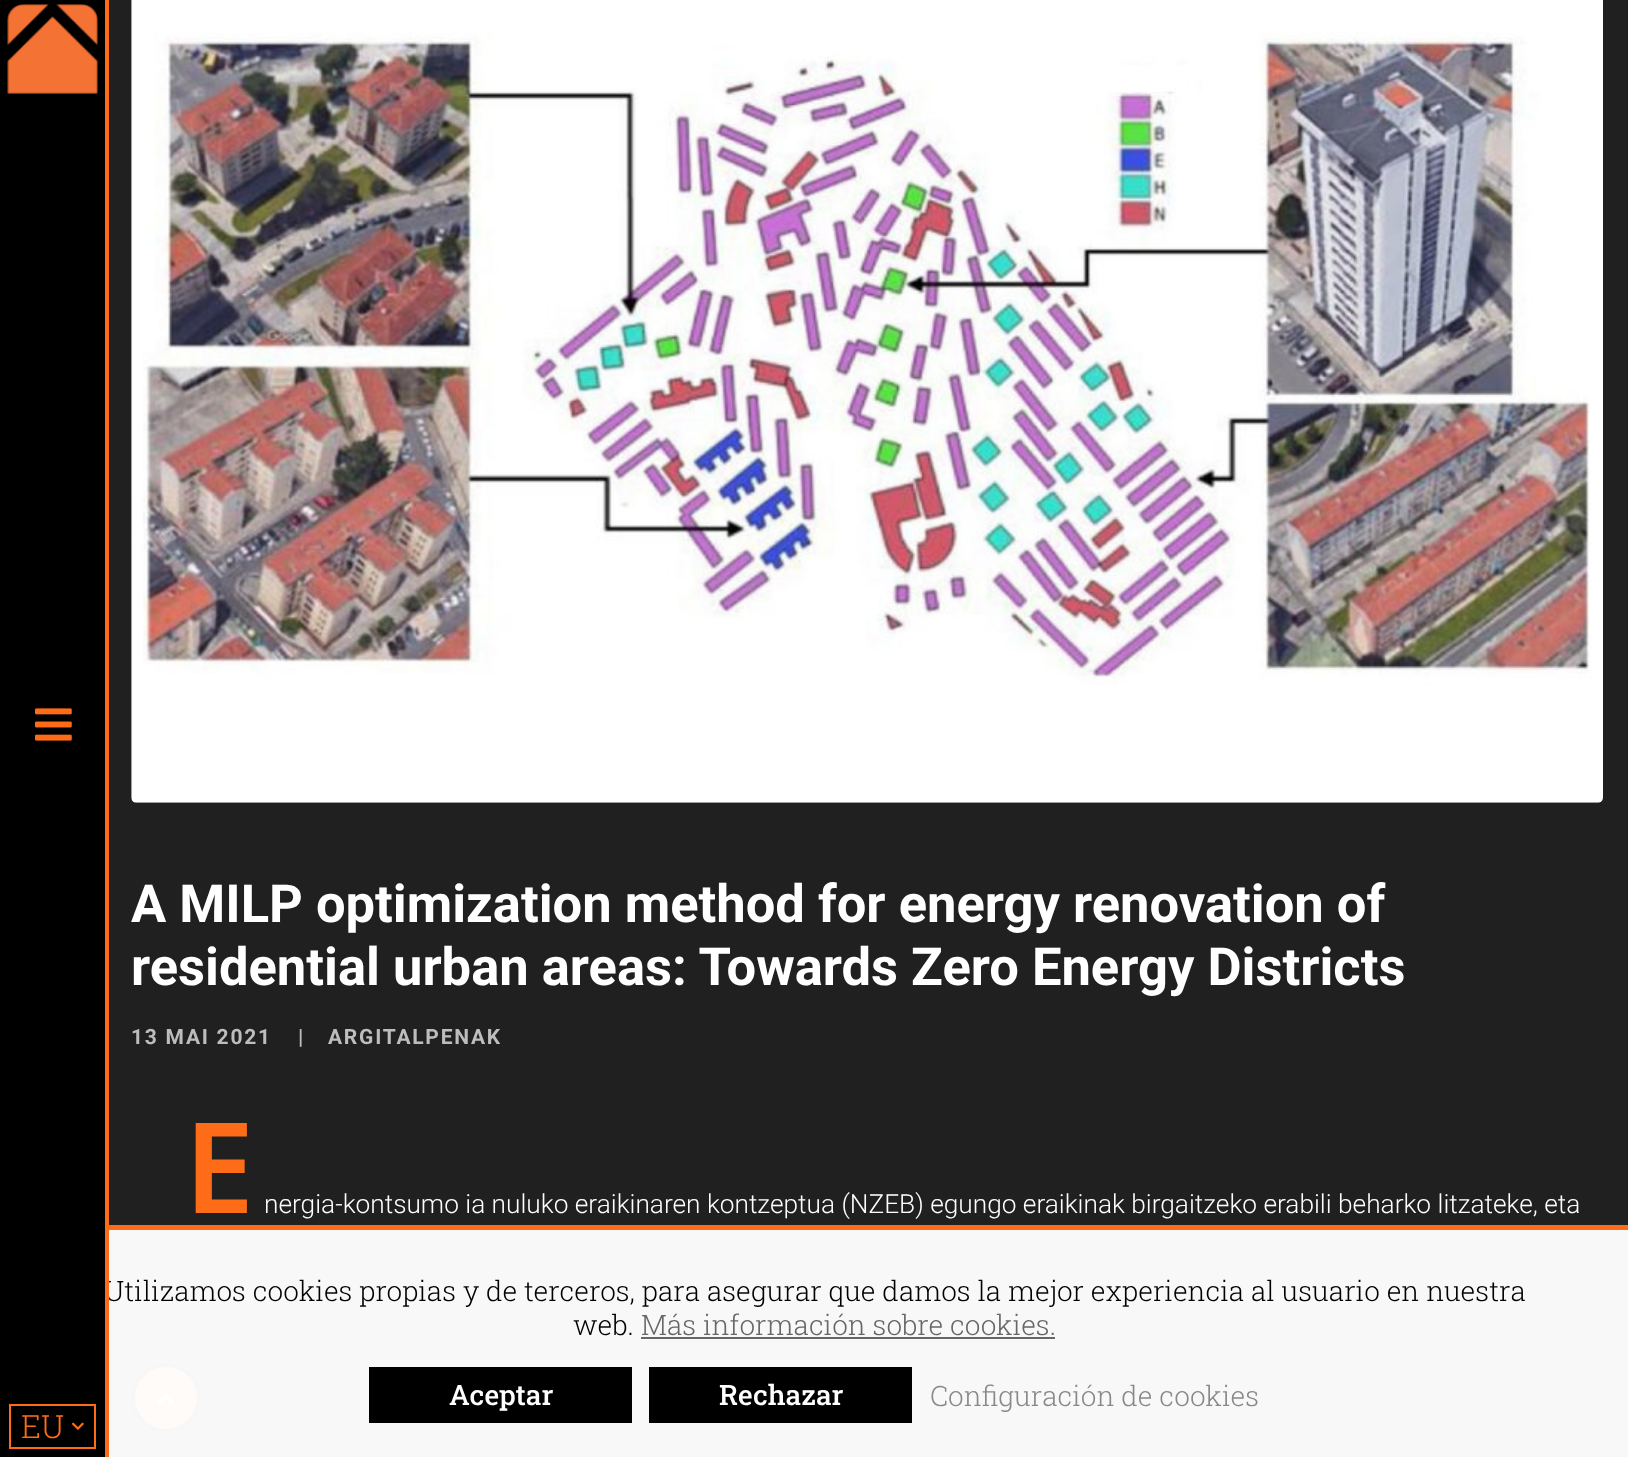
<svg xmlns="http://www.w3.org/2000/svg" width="1628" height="1457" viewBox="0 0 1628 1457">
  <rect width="100%" height="100%" fill="#202020"/>
  <path d="M109 1230h1519v227H109z" fill="#f8f8f8"/>
  <image x="131" y="0" width="1472" height="803" href="img/1.png"/>
  <circle cx="166" cy="1398" r="33" fill="#fffbf8" stroke="#f7f7f7" stroke-width="4"/>
  <image x="157" y="1393" width="17" height="12" href="img/2.png"/>
  <path d="M0 0h105v1457H0z" fill="#000"/>
  <image x="7" y="4" width="91" height="90" href="img/3.png"/>
  <image x="35" y="708" width="37" height="33" href="img/4.png"/>
  <path d="M10 1405h85v43H10z" fill="none" stroke="#ff6c17" stroke-width="2"/>
  <image x="72" y="1422" width="12" height="8" href="img/5.png"/>
  <path d="M109 1225h1519v5H109z" fill="#ff6c17"/>
  <path d="M641 1337h414v2H641z" fill="#666"/>
  <path d="M369 1367h263v56H369z" fill="#000"/>
  <path d="M649 1367h263v56H649z" fill="#000"/>
  <g font-family="Roboto" font-size="52.5" font-weight="bold" fill="#fff">
    <text x="131" y="922">A MILP optimization method for energy renovation of</text>
    <text x="131" y="985">residential urban areas: Towards Zero Energy Districts</text>
  </g>
  <g font-family="Roboto" font-size="21" font-weight="bold" letter-spacing="1.75" fill="#bdbdbd">
    <text x="131" y="1044">13 MAI 2021</text>
    <text x="298" y="1044">|</text>
    <text x="328" y="1044">ARGITALPENAK</text>
  </g>
  <text x="184" y="1213" font-family="Noto Sans" font-size="126" font-weight="600" fill="#ff6c17">E</text>
  <text x="264" y="1213" font-family="Roboto" font-size="26.25" font-weight="300" fill="#fff">nergia-kontsumo ia nuluko eraikinaren kontzeptua (NZEB) egungo eraikinak birgaitzeko erabili beharko litzateke, eta</text>
  <text x="21" y="1438" font-family="Roboto Slab" font-size="32" font-weight="300" fill="#ff6c17">EU</text>
  <text x="104" y="1301" font-family="Roboto Slab" font-size="28" font-weight="300" fill="#000">Utilizamos cookies propias y de terceros, para asegurar que damos la mejor experiencia al usuario en nuestra</text>
  <path d="M4 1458H109V0H105V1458Z" fill="#ff6c17"/>
  <text x="573" y="1335" font-family="Roboto Slab" font-size="28" font-weight="300" fill="#000">web.</text>
  <text x="641" y="1335" font-family="Roboto Slab" font-size="28" font-weight="300" fill="#666">Más información sobre cookies.</text>
  <g font-family="Roboto Slab" font-size="28" font-weight="500" fill="#fff">
    <text x="449" y="1405">Aceptar</text>
    <text x="719" y="1405">Rechazar</text>
  </g>
  <text x="930" y="1406" font-family="Roboto Slab" font-size="28" font-weight="300" fill="#898888">Configuración de cookies</text>
</svg>
